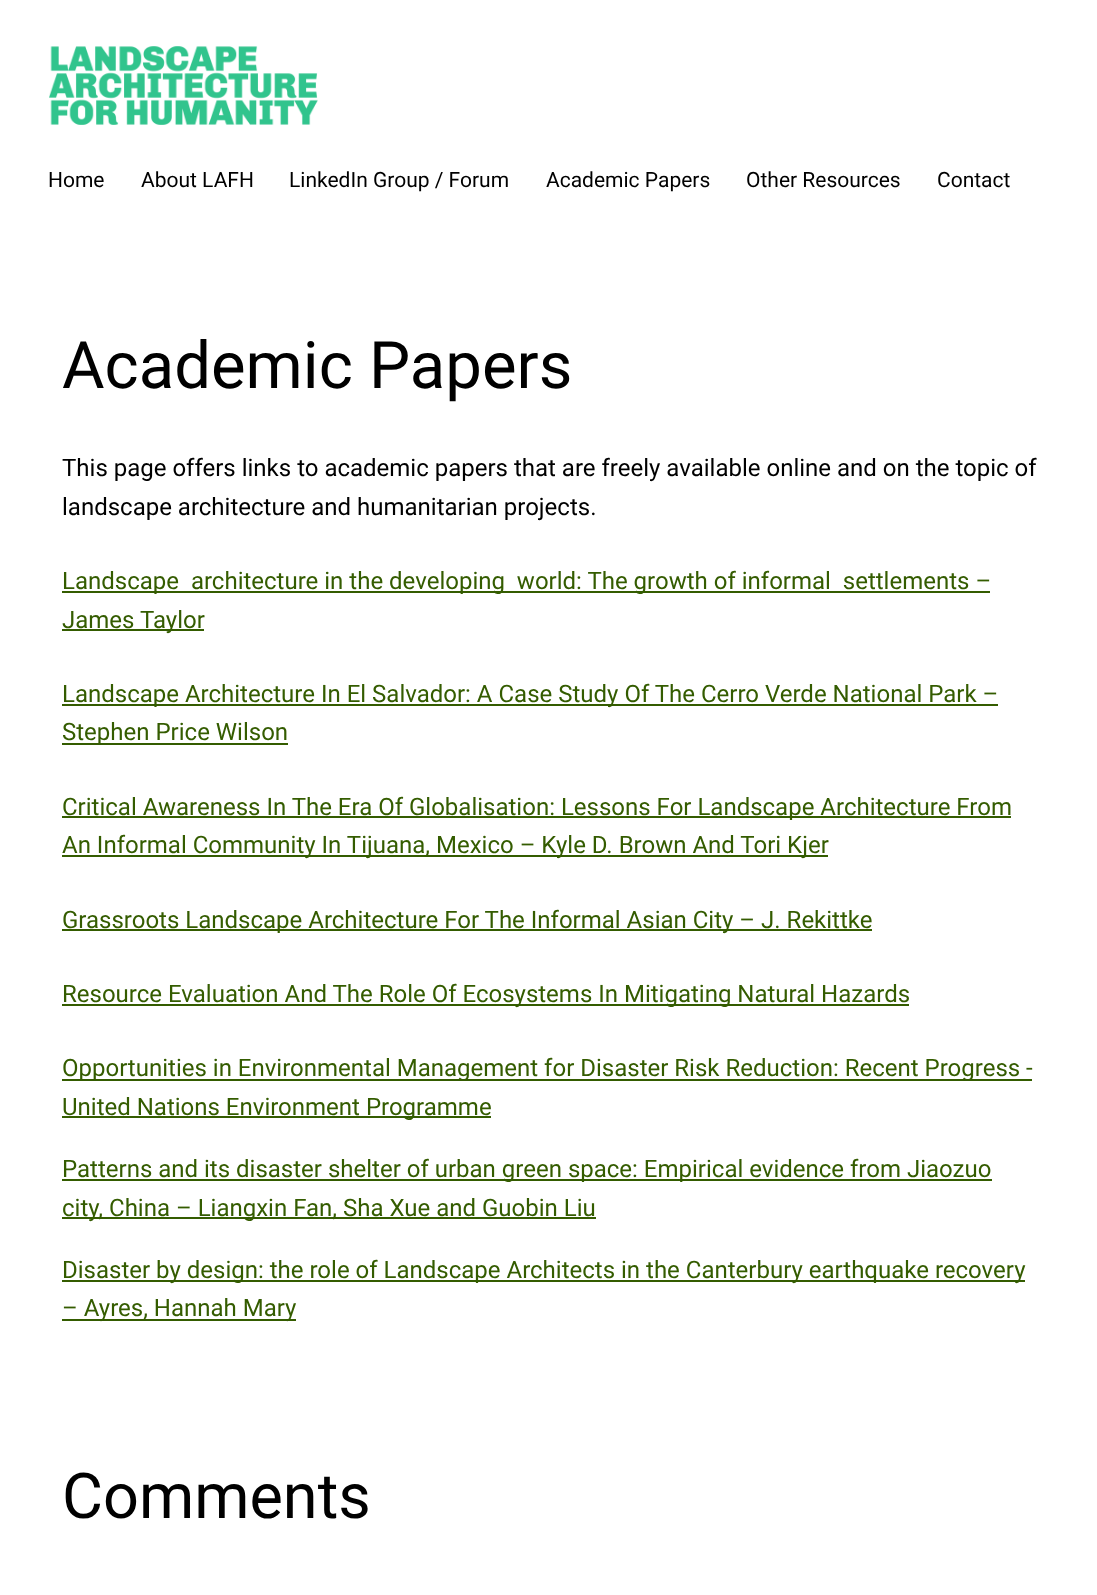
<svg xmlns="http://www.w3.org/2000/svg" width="1097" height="1595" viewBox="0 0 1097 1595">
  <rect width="100%" height="100%" fill="#fff"/>
  <image x="49" y="46" width="269" height="79" href="img/1.png"/>
  <path d="M62 591h928v2H62z" fill="#345c00"/>
  <path d="M62 629h142v2H62z" fill="#345c00"/>
  <path d="M62 704h936v2H62z" fill="#345c00"/>
  <path d="M62 743h226v2H62z" fill="#345c00"/>
  <path d="M62 816h949v2H62z" fill="#345c00"/>
  <path d="M62 855h766v2H62z" fill="#345c00"/>
  <path d="M62 929h810v2H62z" fill="#345c00"/>
  <path d="M62 1004h847v2H62z" fill="#345c00"/>
  <path d="M62 1079h970v2H62z" fill="#345c00"/>
  <path d="M62 1116h429v2H62z" fill="#345c00"/>
  <path d="M62 1179h930v2H62z" fill="#345c00"/>
  <path d="M62 1217h534v2H62z" fill="#345c00"/>
  <path d="M62 1280h963v2H62z" fill="#345c00"/>
  <path d="M62 1319h234v2H62z" fill="#345c00"/>
  <g font-family="Roboto" font-size="21" fill="#000">
    <text x="48" y="187">Home</text>
    <text x="141" y="187">About LAFH</text>
    <text x="289" y="187">LinkedIn Group / Forum</text>
    <text x="546" y="187">Academic Papers</text>
    <text x="746" y="187">Other Resources</text>
    <text x="937" y="187">Contact</text>
  </g>
  <text x="62" y="388" font-family="Roboto" font-size="65.25" fill="#000">Academic Papers</text>
  <g font-family="Roboto" font-size="24" fill="#000">
    <text x="62" y="476">This page offers links to academic papers that are freely available online and on the topic of</text>
    <text x="62" y="515">landscape architecture and humanitarian projects.</text>
  </g>
  <g font-family="Roboto" font-size="24" fill="#345c00">
    <text x="62" y="589" xml:space="preserve">Landscape  architecture in the developing  world: The growth of informal  settlements –</text>
    <text x="62" y="628">James Taylor</text>
    <text x="62" y="702">Landscape Architecture In El Salvador: A Case Study Of The Cerro Verde National Park –</text>
    <text x="62" y="740">Stephen Price Wilson</text>
    <text x="62" y="815">Critical Awareness In The Era Of Globalisation: Lessons For Landscape Architecture From</text>
    <text x="62" y="853">An Informal Community In Tijuana, Mexico – Kyle D. Brown And Tori Kjer</text>
    <text x="62" y="928">Grassroots Landscape Architecture For The Informal Asian City – J. Rekittke</text>
    <text x="62" y="1002">Resource Evaluation And The Role Of Ecosystems In Mitigating Natural Hazards</text>
    <text x="62" y="1076">Opportunities in Environmental Management for Disaster Risk Reduction: Recent Progress -</text>
    <text x="62" y="1115">United Nations Environment Programme</text>
    <text x="62" y="1177">Patterns and its disaster shelter of urban green space: Empirical evidence from Jiaozuo</text>
    <text x="62" y="1216">city, China – Liangxin Fan, Sha Xue and Guobin Liu</text>
    <text x="62" y="1278">Disaster by design: the role of Landscape Architects in the Canterbury earthquake recovery</text>
    <text x="62" y="1316">– Ayres, Hannah Mary</text>
  </g>
  <text x="62" y="1518" font-family="Roboto" font-size="63" fill="#000">Comments</text>
</svg>
